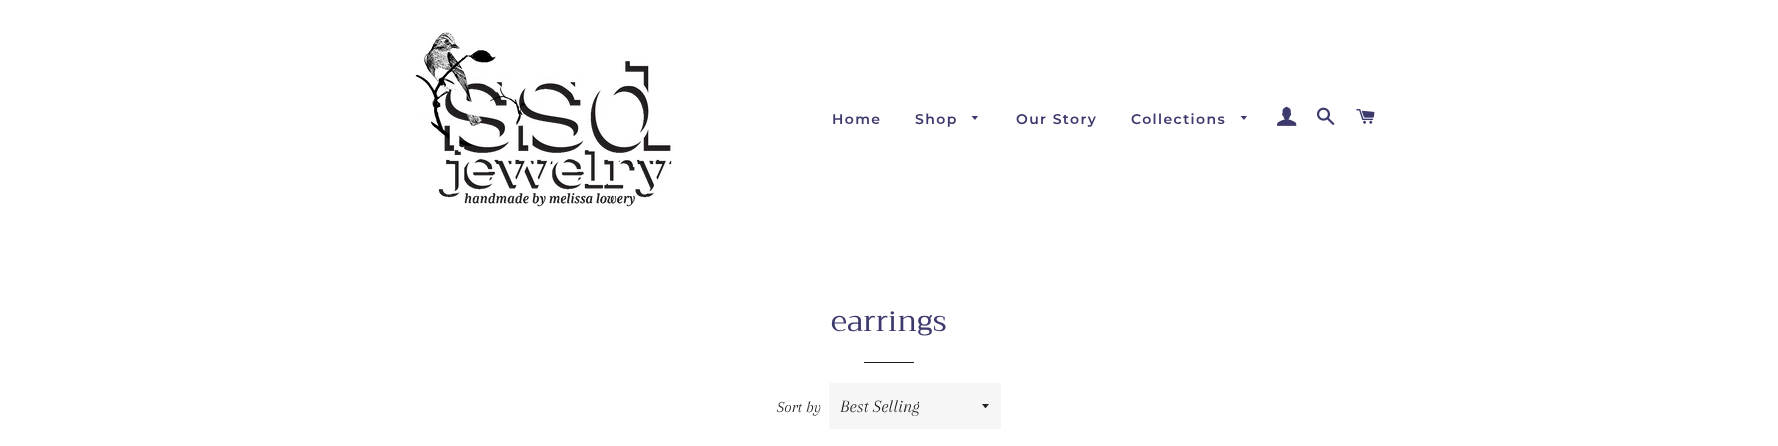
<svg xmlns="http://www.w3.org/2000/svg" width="1778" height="446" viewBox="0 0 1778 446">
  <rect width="100%" height="100%" fill="#fff"/>
  <image x="415" y="32" width="258" height="175" href="img/1.png"/>
  <path d="M971.5 116L975 120L978 116Z" fill="#3c396d"/>
  <path d="M1240.5 116L1244 120L1247 116Z" fill="#3c396d"/>
  <image x="1277" y="106" width="20" height="20" href="img/2.png"/>
  <image x="1317" y="107" width="18" height="18" href="img/3.png"/>
  <image x="1356" y="109" width="19" height="15" href="img/4.png"/>
  <path d="M864 362h50v1H864z" fill="#1c1d1d"/>
  <path d="M829 383h172v46H829z" fill="#f6f6f6"/>
  <path d="M982 404C986.5 409.5 984.5 409.5 989 404Z" fill="#222323"/>
  <g font-family="Montserrat" font-size="14" font-weight="600" letter-spacing="1.4" fill="#3c396d">
    <text x="832" y="124">Home</text>
    <text x="915" y="124">Shop</text>
    <text x="1016" y="124">Our Story</text>
    <text x="1131" y="124">Collections</text>
  </g>
  <text x="831" y="331" font-family="Trirong" font-size="30" fill="#3c396d">earrings</text>
  <text x="777" y="412" font-family="Arapey" font-size="16" font-style="italic" fill="#222323">Sort by</text>
  <text x="840" y="412" font-family="Arapey" font-size="18" font-style="italic" fill="#1c1d1d">Best Selling</text>
</svg>
